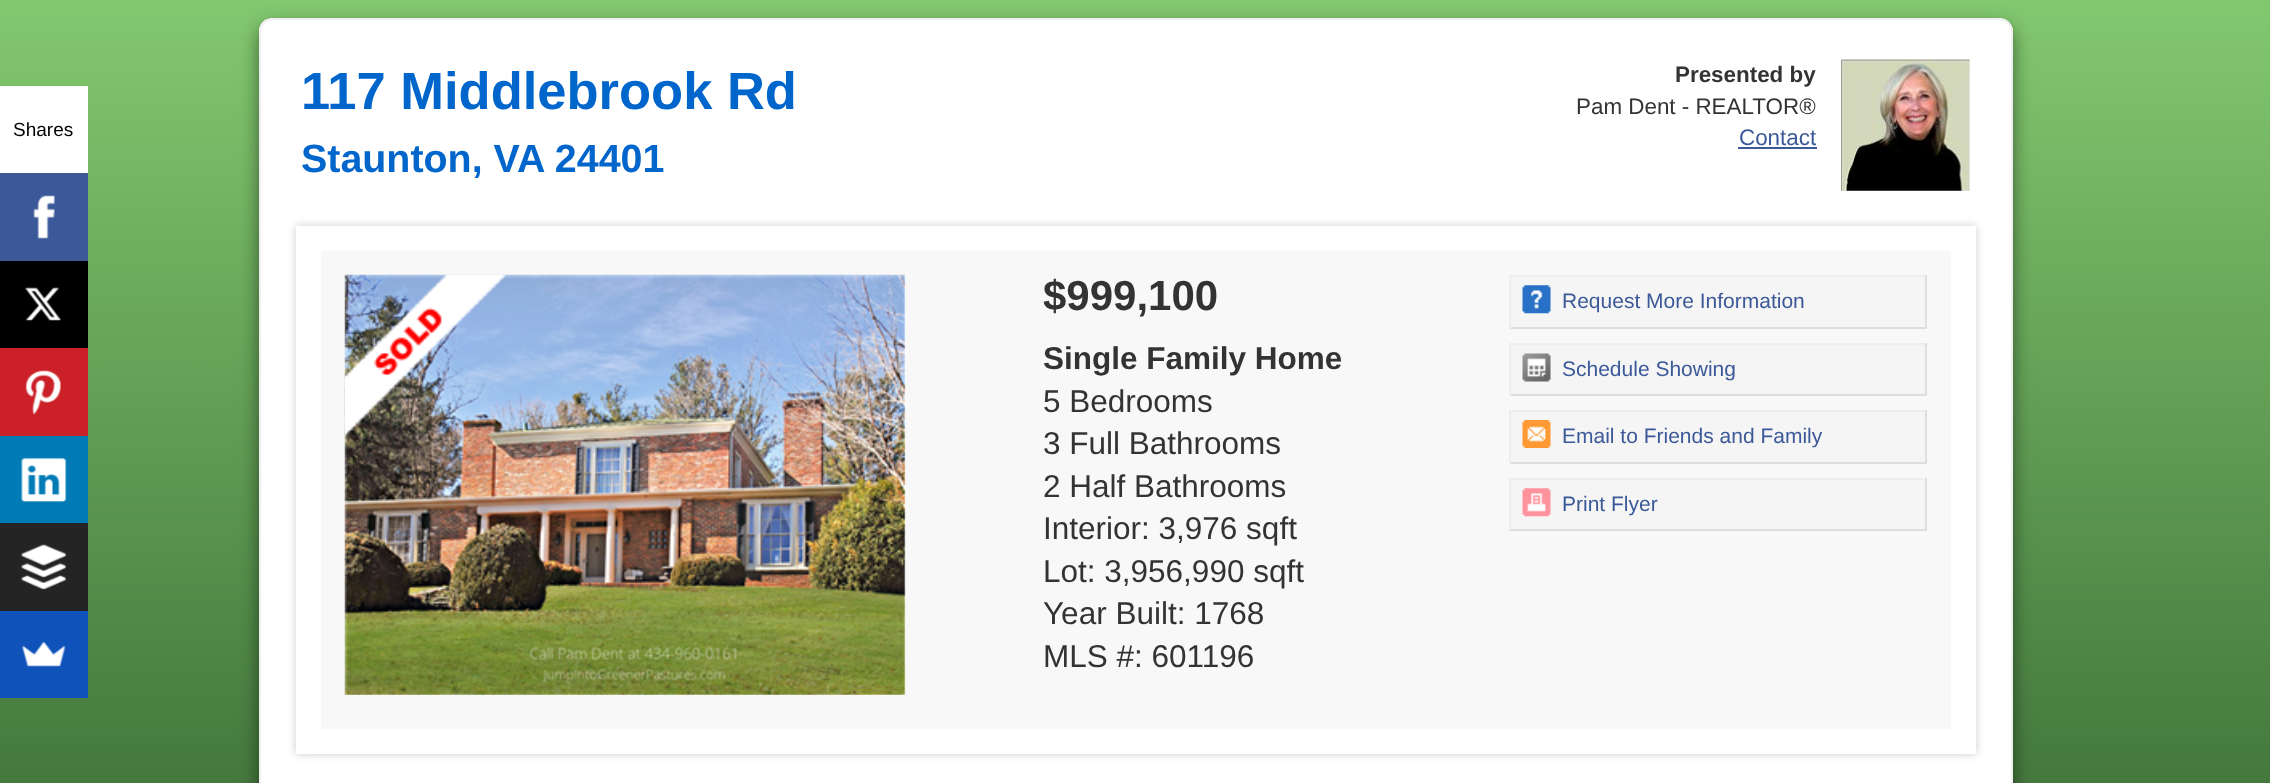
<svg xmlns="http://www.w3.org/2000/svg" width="2270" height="783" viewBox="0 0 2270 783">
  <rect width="100%" height="100%" fill="#fff"/>
  <image x="0" y="0" width="2270" height="783" href="img/1.png"/>
  <path d="M0 86h88v87H0z" fill="#fff"/>
  <path d="M0 173h88v88H0z" fill="#3b5998"/>
  <image x="33" y="195" width="22" height="44" href="img/2.png"/>
  <path d="M0 261h88v87H0z" fill="#000"/>
  <image x="25" y="287" width="36" height="34" href="img/3.png"/>
  <path d="M0 348h88v88H0z" fill="#cb2027"/>
  <image x="25" y="370" width="36" height="45" href="img/4.png"/>
  <path d="M0 436h88v87H0z" fill="#007bb6"/>
  <image x="21" y="458" width="46" height="45" href="img/5.png"/>
  <path d="M0 523h88v88H0z" fill="#242424"/>
  <image x="21" y="544" width="46" height="46" href="img/6.png"/>
  <path d="M0 611h88v87H0z" fill="#0f52ba"/>
  <image x="22" y="642" width="44" height="25" href="img/7.png"/>
  <rect x="259" y="26" width="1754" height="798" rx="14" fill="#00000080" filter="blur(9px)"/>
  <path d="M273 18H1999C2006.5 18 2013 24.5 2013 32V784H259V32C259 24.5 265.5 18 273 18Z" fill="#fff"/>
  <image x="259" y="19" width="1754" height="13" href="img/8.png"/>
  <rect x="260" y="19" width="1752" height="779" rx="13" fill="none" stroke="#efefef" stroke-width="2"/>
  <path d="M1738 147h79v2H1738z" fill="#3b5998"/>
  <image x="1841" y="59" width="130" height="132" href="img/9.png"/>
  <path d="M296 226h1680v528H296z" fill="#00000033" filter="blur(4.5px)"/>
  <path d="M308.5 238.5h1655v503H308.5z" fill="#f8f8f8" stroke="#fff" stroke-width="25"/>
  <image x="344" y="274" width="562" height="421" href="img/10.png"/>
  <image x="344" y="274" width="163" height="163" href="img/11.png"/>
  <path d="M1511 277h414v50H1511z" fill="#f5f5f5"/>
  <path d="M1509 275h418v2H1509z" fill="#eee"/>
  <path d="M1925 275h2v54H1925z" fill="#dedede"/>
  <path d="M1509 327h418v2H1509z" fill="#dedede"/>
  <path d="M1509 275h2v54H1509z" fill="#eee"/>
  <image x="1522" y="285" width="29" height="29" href="img/12.png"/>
  <path d="M1511 345h414v49H1511z" fill="#f5f5f5"/>
  <path d="M1509 343h418v2H1509z" fill="#eee"/>
  <path d="M1925 343h2v53H1925z" fill="#dedede"/>
  <path d="M1509 394h418v2H1509z" fill="#dedede"/>
  <path d="M1509 343h2v53H1509z" fill="#eee"/>
  <image x="1522" y="353" width="29" height="29" href="img/13.png"/>
  <path d="M1511 412h414v50H1511z" fill="#f5f5f5"/>
  <path d="M1509 410h418v2H1509z" fill="#eee"/>
  <path d="M1925 410h2v54H1925z" fill="#dedede"/>
  <path d="M1509 462h418v2H1509z" fill="#dedede"/>
  <path d="M1509 410h2v54H1509z" fill="#eee"/>
  <image x="1522" y="420" width="29" height="28" href="img/14.png"/>
  <path d="M1511 480h414v49H1511z" fill="#f5f5f5"/>
  <path d="M1509 478h418v2H1509z" fill="#eee"/>
  <path d="M1925 478h2v52H1925z" fill="#dedede"/>
  <path d="M1509 529h418v2H1509z" fill="#dedede"/>
  <path d="M1509 478h2v52H1509z" fill="#eee"/>
  <image x="1522" y="488" width="29" height="29" href="img/15.png"/>
  <text x="13" y="136" font-family="Liberation Sans" font-size="19" fill="#000">Shares</text>
  <text x="301" y="109" font-family="Liberation Sans" font-size="52.5" font-weight="bold" fill="#06c">117 Middlebrook Rd</text>
  <text x="301" y="172" font-family="Liberation Sans" font-size="39.4" font-weight="bold" fill="#06c">Staunton, VA 24401</text>
  <text x="1675" y="82" font-family="Liberation Sans" font-size="22.4" font-weight="bold" fill="#333">Presented by</text>
  <text x="1576" y="114" font-family="Liberation Sans" font-size="22.4" fill="#333">Pam Dent - REALTOR®</text>
  <text x="1739" y="145" font-family="Liberation Sans" font-size="22.4" fill="#3b5998">Contact</text>
  <text x="1043" y="310" font-family="Liberation Sans" font-size="42" font-weight="bold" fill="#333">$999,100</text>
  <text x="1043" y="369" font-family="Liberation Sans" font-size="31.5" font-weight="bold" fill="#333">Single Family Home</text>
  <g font-family="Liberation Sans" font-size="31.5" fill="#333">
    <text x="1043" y="412">5 Bedrooms</text>
    <text x="1043" y="454">3 Full Bathrooms</text>
    <text x="1043" y="497">2 Half Bathrooms</text>
    <text x="1043" y="539">Interior: 3,976 sqft</text>
    <text x="1043" y="582">Lot: 3,956,990 sqft</text>
    <text x="1043" y="624">Year Built: 1768</text>
    <text x="1043" y="667">MLS #: 601196</text>
  </g>
  <g font-family="Liberation Sans" font-size="21" fill="#3b5998">
    <text x="1562" y="308">Request More Information</text>
    <text x="1562" y="376">Schedule Showing</text>
    <text x="1562" y="443">Email to Friends and Family</text>
    <text x="1562" y="511">Print Flyer</text>
  </g>
</svg>
